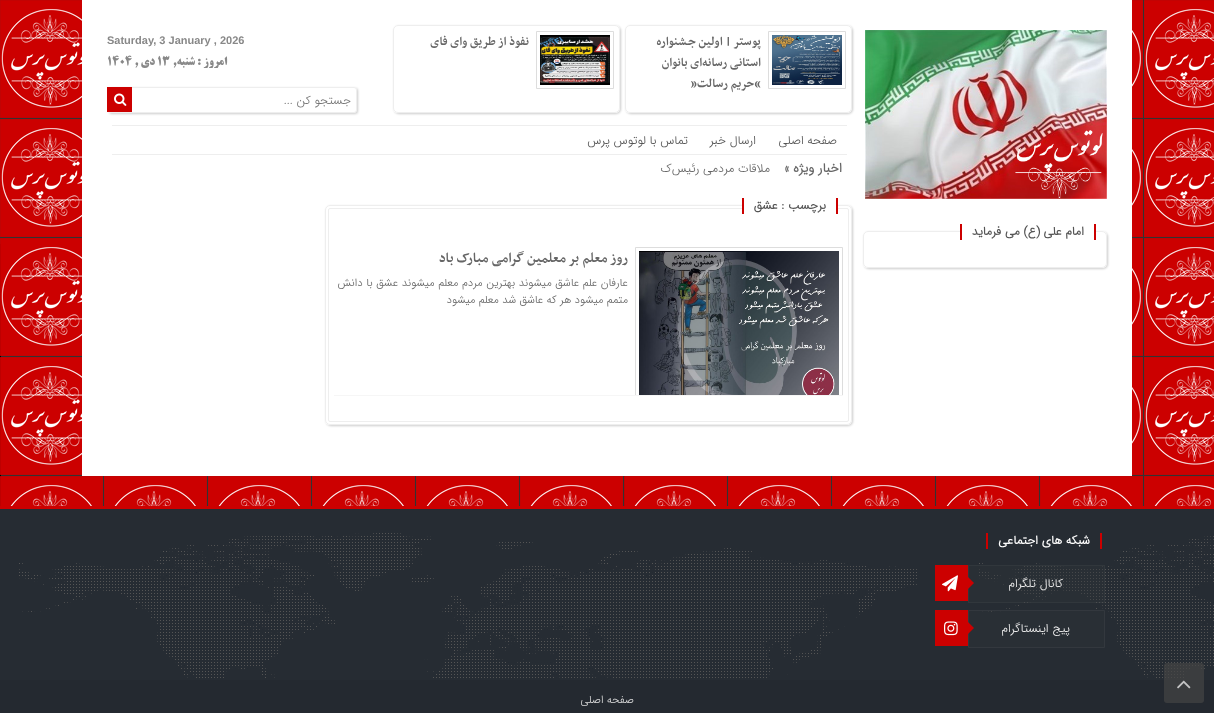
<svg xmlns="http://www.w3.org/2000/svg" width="1214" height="713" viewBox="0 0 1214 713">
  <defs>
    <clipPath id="clip1"><path d="M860 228H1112V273H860ZM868 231H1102C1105 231 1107 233 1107 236V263C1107 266 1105 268 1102 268H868C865 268 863 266 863 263V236C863 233 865 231 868 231Z" clip-rule="evenodd"/></clipPath>
    <clipPath id="clip2"><path d="M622 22H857V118H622ZM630 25H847C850 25 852 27 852 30V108C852 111 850 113 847 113H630C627 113 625 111 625 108V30C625 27 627 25 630 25Z" clip-rule="evenodd"/></clipPath>
    <clipPath id="clip3"><path d="M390 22H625V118H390ZM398 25H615C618 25 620 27 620 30V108C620 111 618 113 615 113H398C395 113 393 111 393 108V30C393 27 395 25 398 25Z" clip-rule="evenodd"/></clipPath>
    <clipPath id="clip4"><path d="M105 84H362V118H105ZM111 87H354C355.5 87 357 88.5 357 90V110C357 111.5 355.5 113 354 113H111C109.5 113 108 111.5 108 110V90C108 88.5 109.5 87 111 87Z" clip-rule="evenodd"/></clipPath>
    <clipPath id="clip5"><path d="M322 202H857V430H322ZM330 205H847C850 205 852 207 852 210V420C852 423 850 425 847 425H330C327 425 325 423 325 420V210C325 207 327 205 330 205Z" clip-rule="evenodd"/></clipPath>
    <clipPath id="clip6"><path d="M334 234h509v161H334z"/></clipPath>
  </defs>
  <rect width="100%" height="100%" fill="#fff"/>
  <image x="0" y="0" width="1214" height="506" href="img/1.png"/>
  <path d="M82 0h1050v476H82z" fill="#fff"/>
  <image x="865" y="30" width="242" height="169" href="img/2.png"/>
  <g clip-path="url(#clip1)">
    <rect x="864" y="232" width="244" height="37" rx="5" fill="#00000033" filter="blur(1px)"/>
  </g>
  <rect x="863.5" y="231.5" width="243" height="36" rx="4.5" fill="none" stroke="#eee"/>
  <rect x="960" y="222" width="136" height="19" rx="3" fill="#fff"/>
  <path d="M1094 224h2v16H1094z" fill="#c00"/>
  <path d="M960 224h2v16H960z" fill="#c00"/>
  <g clip-path="url(#clip2)">
    <rect x="626" y="26" width="227" height="88" rx="5" fill="#00000033" filter="blur(1px)"/>
  </g>
  <rect x="625.5" y="25.5" width="226" height="87" rx="4.5" fill="none" stroke="#eee"/>
  <path d="M768.5 31.5h77v57H768.5z" fill="none" stroke="#ddd"/>
  <image x="772" y="35" width="70" height="50" href="img/3.png"/>
  <g clip-path="url(#clip3)">
    <rect x="394" y="26" width="227" height="88" rx="5" fill="#00000033" filter="blur(1px)"/>
  </g>
  <rect x="393.5" y="25.5" width="226" height="87" rx="4.5" fill="none" stroke="#eee"/>
  <path d="M536.5 31.5h77v57H536.5z" fill="none" stroke="#ddd"/>
  <image x="540" y="35" width="70" height="50" href="img/4.png"/>
  <g clip-path="url(#clip4)">
    <rect x="109" y="88" width="249" height="26" rx="3" fill="#00000033" filter="blur(1px)"/>
  </g>
  <rect x="108.5" y="87.5" width="248" height="25" rx="2.5" fill="none" stroke="#eee"/>
  <path d="M107 87h25v25H107z" fill="#c00"/>
  <image x="114" y="93" width="13" height="13" href="img/5.png"/>
  <path d="M112 125h735v1H112z" fill="#eee"/>
  <path d="M112 154h735v1H112z" fill="#eee"/>
  <g clip-path="url(#clip5)">
    <rect x="326" y="206" width="527" height="220" rx="5" fill="#00000033" filter="blur(1px)"/>
  </g>
  <rect x="325.5" y="205.5" width="526" height="219" rx="4.5" fill="none" stroke="#eee"/>
  <rect x="328.5" y="208.5" width="520" height="213" rx="1.5" fill="none" stroke="#eee"/>
  <rect x="742" y="196" width="96" height="19" rx="3" fill="#fff"/>
  <path d="M836 198h2v16H836z" fill="#c00"/>
  <path d="M742 198h2v16H742z" fill="#c00"/>
  <path d="M334 395h509v1H334z" fill="#f6f6f6"/>
  <g clip-path="url(#clip6)">
    <path d="M635.5 247.5h207v159H635.5z" fill="none" stroke="#ddd"/>
  </g>
  <image x="639" y="251" width="200" height="144" href="img/6.png"/>
  <path d="M0 509h1214v171H0z" fill="#262c33"/>
  <image x="19" y="533" width="1195" height="145" href="img/7.png"/>
  <path d="M0 506h1214v3H0z" fill="#c00"/>
  <path d="M1100 533h2v16H1100z" fill="#c00"/>
  <path d="M986 533h2v16H986z" fill="#c00"/>
  <path d="M968 565h137v38H968z" fill="#30353a66"/>
  <path d="M968.5 565.5h136v37H968.5z" fill="none" stroke="#ffffff0a"/>
  <path d="M935 565h33v36H935z" fill="#c00"/>
  <path d="M966 591V575L974 583Z" fill="#c00"/>
  <image x="942" y="575" width="16" height="17" href="img/8.png"/>
  <path d="M968.5 610.5h136v37H968.5z" fill="#30353a66" stroke="#33383e"/>
  <path d="M935 610h33v36H935z" fill="#c00"/>
  <path d="M966 636V620L974 628Z" fill="#c00"/>
  <image x="944" y="621" width="14" height="15" href="img/9.png"/>
  <path d="M0 680h1214v33H0z" fill="#242930"/>
  <rect x="1164" y="663" width="40" height="40" rx="3" fill="#444444b3"/>
  <image x="1177" y="680" width="14" height="9" href="img/10.png"/>
  <text x="1084" y="235" font-family="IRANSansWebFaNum" font-size="12" font-weight="bold" direction="rtl" fill="#555">امام علی (ع) می فرماید</text>
  <g font-family="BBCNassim" font-size="14" font-weight="bold" direction="rtl" fill="#666">
    <text x="761" y="45">پوستر | اولین جـشنواره</text>
    <text x="761" y="66">استانی رسانه‌ای بانوان</text>
    <text x="761" y="87">“حریم رسالت”</text>
    <text x="529" y="45">نفوذ از طریق وای فای</text>
  </g>
  <text x="107" y="44" font-family="Liberation Sans" font-size="11" font-weight="bold" fill="#888">Saturday, 3 January , 2026</text>
  <g font-family="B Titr" font-size="12" font-weight="bold" direction="rtl" fill="#888">
    <text x="227" y="65">امروز :</text>
    <text x="195" y="65">شنبه,</text>
  </g>
  <text x="157" y="65" font-family="B Titr" font-size="12" font-weight="bold" fill="#888">۱۳</text>
  <text x="155" y="65" font-family="B Titr" font-size="12" font-weight="bold" direction="rtl" fill="#888">دی ,</text>
  <text x="107" y="65" font-family="B Titr" font-size="12" font-weight="bold" fill="#888">۱۴۰۴</text>
  <text x="351" y="104" font-family="IRANSansWebFaNum" font-size="12" font-weight="300" direction="rtl" fill="#757575">جستجو کن ...</text>
  <g font-family="IRANSansWebFaNum" font-size="12" font-weight="300" direction="rtl" fill="#555">
    <text x="837" y="144">صفحه اصلی</text>
    <text x="756" y="144">ارسال خبر</text>
    <text x="688" y="144">تماس با لوتوس پرس</text>
  </g>
  <text x="842" y="172" font-family="IRANSansWebFaNum" font-size="13" font-weight="bold" direction="rtl" fill="#666">اخبار ویژه »</text>
  <text x="770" y="172" font-family="IRANSansWebFaNum" font-size="12" font-weight="300" direction="rtl" fill="#666">ملاقات مردمی رئیس‌ک</text>
  <text x="826" y="209" font-family="IRANSansWebFaNum" font-size="12" font-weight="bold" direction="rtl" fill="#555">برچسب : عشق</text>
  <g font-family="BBCNassim" font-size="16" font-weight="bold" direction="rtl" fill="#666">
    <text x="628" y="262">روز معلم</text>
    <text x="579" y="262">بر معلمین گرامی مبارک باد</text>
  </g>
  <g font-family="IRANSansWebFaNum" font-size="11" font-weight="300" direction="rtl" fill="#666">
    <text x="628" y="286" word-spacing="0.25">عارفان علم عاشق میشوند بهترین مردم معلم میشوند عشق با دانش</text>
    <text x="628" y="303">متمم میشود هر که عاشق شد معلم میشود</text>
  </g>
  <text x="1090" y="544" font-family="IRANSansWebFaNum" font-size="12" font-weight="bold" direction="rtl" fill="#fff">شبکه های اجتماعی</text>
  <g font-family="IRANSansWebFaNum" font-size="12" font-weight="300" direction="rtl" fill="#eee">
    <text x="1063" y="587">کانال تلگرام</text>
    <text x="1070" y="632">پیج اینستاگرام</text>
  </g>
  <text x="634" y="703" font-family="IRANSansWebFaNum" font-size="11" font-weight="300" direction="rtl" fill="#ddd">صفحه اصلی</text>
</svg>
